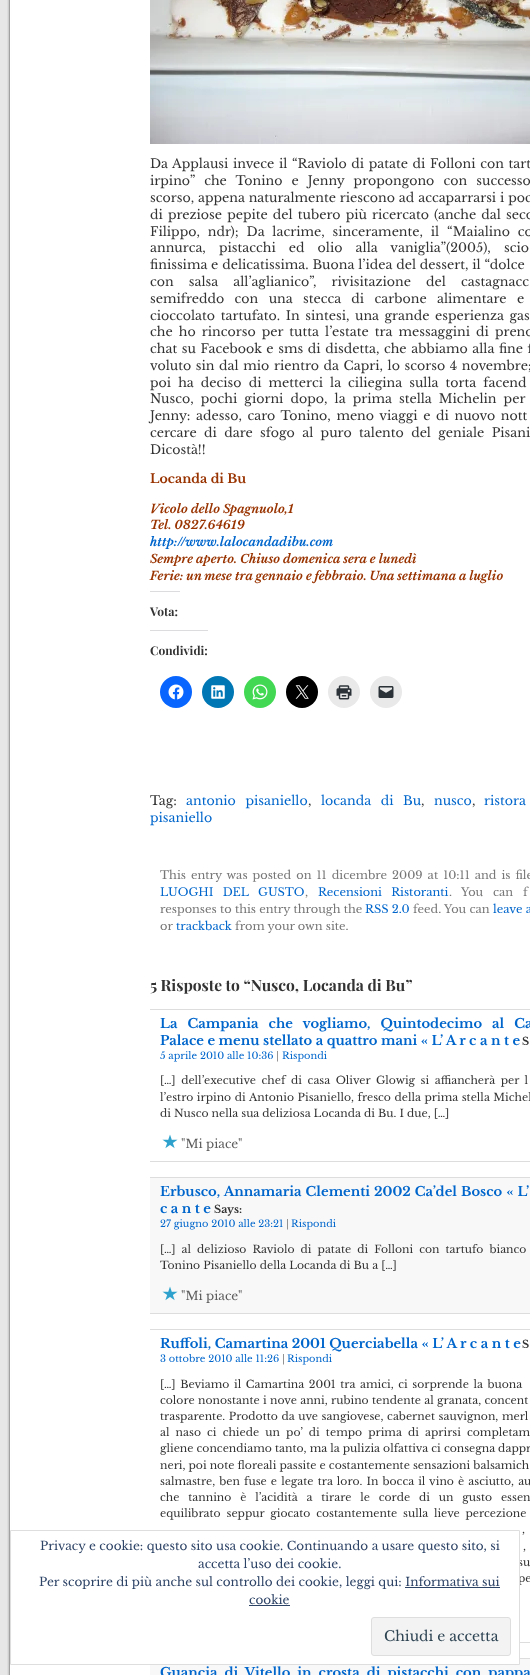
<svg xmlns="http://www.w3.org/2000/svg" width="530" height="1675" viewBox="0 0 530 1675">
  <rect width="100%" height="100%" fill="#e7e7e7"/>
  <image x="7" y="0" width="523" height="1675" href="img/1.png"/>
  <image x="150" y="0" width="380" height="144" href="img/2.png"/>
  <path d="M150 591h30v1H150z" fill="#dcdcde"/>
  <path d="M150 630h58v1H150z" fill="#dcdcde"/>
  <circle cx="176" cy="692" r="16" fill="#0866ff"/>
  <image x="168" y="684" width="16" height="16" href="img/3.png"/>
  <circle cx="218" cy="692" r="16" fill="#0077b5"/>
  <image x="211" y="685" width="14" height="14" href="img/4.png"/>
  <circle cx="260" cy="692" r="16" fill="#43d854"/>
  <image x="252" y="684" width="16" height="16" href="img/5.png"/>
  <circle cx="302" cy="692" r="16" fill="#000"/>
  <image x="295" y="685" width="14" height="14" href="img/6.png"/>
  <circle cx="344" cy="692" r="16" fill="#e9e9e9"/>
  <image x="336" y="685" width="16" height="15" href="img/7.png"/>
  <circle cx="386" cy="692" r="16" fill="#e9e9e9"/>
  <image x="378" y="686" width="16" height="12" href="img/8.png"/>
  <path d="M150 1009h380v1H150z" fill="#ddd"/>
  <path d="M150 1161h380v1H150z" fill="#ddd"/>
  <image x="162" y="1134" width="16" height="15" href="img/9.png"/>
  <path d="M150 1178h380v135H150z" fill="#f8f8f8"/>
  <path d="M150 1177h380v1H150z" fill="#ddd"/>
  <path d="M150 1313h380v1H150z" fill="#ddd"/>
  <image x="162" y="1286" width="16" height="15" href="img/10.png"/>
  <path d="M150 1329h380v1H150z" fill="#ddd"/>
  <path d="M520 1642h10v1H520z" fill="#ddd"/>
  <path d="M150 1659h380v16H150z" fill="#f8f8f8"/>
  <path d="M520 1658h10v1H520z" fill="#ddd"/>
  <g font-family="Libre Baskerville" font-size="12.6" fill="#333">
    <text x="150" y="168" word-spacing="1">Da Applausi invece il “Raviolo di patate di Folloni con tart</text>
    <text x="150" y="185" word-spacing="5.5">irpino” che Tonino e Jenny propongono con successo</text>
    <text x="150" y="202" word-spacing="0.25">scorso, appena naturalmente riescono ad accaparrarsi i poc</text>
    <text x="150" y="219" word-spacing="1.5">di preziose pepite del tubero più ricercato (anche dal seco</text>
    <text x="150" y="236" word-spacing="4.25">Filippo, ndr); Da lacrime, sinceramente, il “Maialino co</text>
    <text x="150" y="252" word-spacing="9.5">annurca, pistacchi ed olio alla vaniglia”(2005), scio</text>
    <text x="150" y="269" word-spacing="0.25">finissima e delicatissima. Buona l’idea del dessert, il “dolce</text>
    <text x="150" y="286" word-spacing="11.5">con salsa all’aglianico”, rivisitazione del castagnacc</text>
    <text x="150" y="303" word-spacing="6.75">semifreddo con una stecca di carbone alimentare e</text>
    <text x="150" y="320" word-spacing="2">cioccolato tartufato. In sintesi, una grande esperienza gas</text>
    <text x="150" y="336" word-spacing="2.5">che ho rincorso per tutta l’estate tra messaggini di preno</text>
    <text x="150" y="353" word-spacing="1">chat su Facebook e sms di disdetta, che abbiamo alla fine f</text>
    <text x="150" y="370" word-spacing="1">voluto sin dal mio rientro da Capri, lo scorso 4 novembre;</text>
    <text x="150" y="387" word-spacing="3.5">poi ha deciso di metterci la ciliegina sulla torta facend</text>
    <text x="150" y="403" word-spacing="3.5">Nusco, pochi giorni dopo, la prima stella Michelin per</text>
    <text x="150" y="420" word-spacing="2">Jenny: adesso, caro Tonino, meno viaggi e di nuovo nott</text>
    <text x="150" y="437" word-spacing="3.75">cercare di dare sfogo al puro talento del geniale Pisani</text>
    <text x="150" y="454">Dicostà!!</text>
  </g>
  <text x="150" y="483" font-family="Libre Baskerville" font-size="12.6" font-weight="bold" fill="#930">Locanda di Bu</text>
  <g font-family="Libre Baskerville" font-size="12" font-weight="bold" font-style="italic" fill="#930">
    <text x="150" y="513">Vicolo dello Spagnuolo,1</text>
    <text x="150" y="529">Tel. 0827.64619</text>
  </g>
  <text x="150" y="546" font-family="Libre Baskerville" font-size="12" font-weight="bold" font-style="italic" fill="#06c">http://www.lalocandadibu.com</text>
  <g font-family="Libre Baskerville" font-size="12" font-weight="bold" font-style="italic" fill="#930">
    <text x="150" y="563">Sempre aperto. Chiuso domenica sera e lunedì</text>
    <text x="150" y="580">Ferie: un mese tra gennaio e febbraio. Una settimana a luglio</text>
  </g>
  <g font-family="Playfair Display" font-size="12" font-weight="bold" fill="#333">
    <text x="150" y="616">Vota:</text>
    <text x="150" y="655">Condividi:</text>
  </g>
  <text x="150" y="805" font-family="Libre Baskerville" font-size="12.6" fill="#333">Tag:</text>
  <text x="186" y="805" word-spacing="6" font-family="Libre Baskerville" font-size="12.6" fill="#06c">antonio pisaniello</text>
  <text x="308" y="805" font-family="Libre Baskerville" font-size="12.6" fill="#333">,</text>
  <text x="321" y="805" word-spacing="6" font-family="Libre Baskerville" font-size="12.6" fill="#06c">locanda di Bu</text>
  <text x="421" y="805" font-family="Libre Baskerville" font-size="12.6" fill="#333">,</text>
  <text x="434" y="805" font-family="Libre Baskerville" font-size="12.6" fill="#06c">nusco</text>
  <text x="472" y="805" font-family="Libre Baskerville" font-size="12.6" fill="#333">,</text>
  <g font-family="Libre Baskerville" font-size="12.6" fill="#06c">
    <text x="484" y="805">ristora</text>
    <text x="150" y="822">pisaniello</text>
  </g>
  <text x="160" y="879" word-spacing="1.75" font-family="Libre Baskerville" font-size="11.35" fill="#777">This entry was posted on 11 dicembre 2009 at 10:11 and is file</text>
  <text x="160" y="896" word-spacing="6" font-family="Libre Baskerville" font-size="11.35" fill="#06c">LUOGHI DEL GUSTO</text>
  <text x="305" y="896" font-family="Libre Baskerville" font-size="11.35" fill="#777">,</text>
  <text x="318" y="896" word-spacing="6" font-family="Libre Baskerville" font-size="11.35" fill="#06c">Recensioni Ristoranti</text>
  <g font-family="Libre Baskerville" font-size="11.35" fill="#777">
    <text x="449" y="896">.</text>
    <text x="461" y="896" word-spacing="6.5">You can f</text>
    <text x="160" y="913">responses to this entry through the</text>
  </g>
  <text x="365" y="913" font-family="Libre Baskerville" font-size="11.35" fill="#06c">RSS 2.0</text>
  <text x="413" y="913" font-family="Libre Baskerville" font-size="11.35" fill="#777">feed. You can</text>
  <text x="493" y="913" font-family="Libre Baskerville" font-size="11.35" fill="#06c">leave a</text>
  <text x="160" y="930" font-family="Libre Baskerville" font-size="11.35" fill="#777">or</text>
  <text x="176" y="930" font-family="Libre Baskerville" font-size="11.35" fill="#06c">trackback</text>
  <text x="235" y="930" font-family="Libre Baskerville" font-size="11.35" fill="#777">from your own site.</text>
  <text x="150" y="991" font-family="Playfair Display" font-size="15.6" font-weight="bold" fill="#333">5 Risposte to “Nusco, Locanda di Bu”</text>
  <g font-family="Libre Baskerville" font-size="13.1" font-weight="bold" fill="#06c">
    <text x="160" y="1028" word-spacing="6.5">La Campania che vogliamo, Quintodecimo al Ca</text>
    <text x="160" y="1045">Palace e menu stellato a quattro mani « L’ A r c a n t e</text>
  </g>
  <text x="522" y="1045" font-family="Libre Baskerville" font-size="10.8" font-weight="bold" fill="#333">S</text>
  <text x="160" y="1059" font-family="Libre Baskerville" font-size="9.75" fill="#06c">5 aprile 2010 alle 10:36</text>
  <text x="276" y="1059" font-family="Libre Baskerville" font-size="9.75" fill="#777">|</text>
  <text x="282" y="1059" font-family="Libre Baskerville" font-size="9.75" fill="#06c">Rispondi</text>
  <g font-family="Libre Baskerville" font-size="10.8" fill="#333">
    <text x="160" y="1084" word-spacing="2.5">[…] dell’executive chef di casa Oliver Glowig si affiancherà per l</text>
    <text x="160" y="1101" word-spacing="0.5">l’estro irpino di Antonio Pisaniello, fresco della prima stella Michel</text>
    <text x="160" y="1117">di Nusco nella sua deliziosa Locanda di Bu. I due, […]</text>
  </g>
  <text x="181" y="1148" font-family="Libre Baskerville" font-size="12" fill="#5c5c5c">"Mi piace"</text>
  <g font-family="Libre Baskerville" font-size="13.1" font-weight="bold" fill="#06c">
    <text x="160" y="1196" word-spacing="0.5">Erbusco, Annamaria Clementi 2002 Ca’del Bosco « L’</text>
    <text x="160" y="1213">c a n t e</text>
  </g>
  <text x="214" y="1213" font-family="Libre Baskerville" font-size="10.8" font-weight="bold" fill="#333">Says:</text>
  <text x="160" y="1227" font-family="Libre Baskerville" font-size="9.75" fill="#06c">27 giugno 2010 alle 23:21</text>
  <text x="286" y="1227" font-family="Libre Baskerville" font-size="9.75" fill="#777">|</text>
  <text x="291" y="1227" font-family="Libre Baskerville" font-size="9.75" fill="#06c">Rispondi</text>
  <g font-family="Libre Baskerville" font-size="10.8" fill="#333">
    <text x="160" y="1253" word-spacing="2.9">[…] al delizioso Raviolo di patate di Folloni con tartufo bianco</text>
    <text x="160" y="1269">Tonino Pisaniello della Locanda di Bu a […]</text>
  </g>
  <text x="181" y="1300" font-family="Libre Baskerville" font-size="12" fill="#5c5c5c">"Mi piace"</text>
  <text x="160" y="1348" font-family="Libre Baskerville" font-size="13.1" font-weight="bold" fill="#06c">Ruffoli, Camartina 2001 Querciabella « L’ A r c a n t e</text>
  <text x="522" y="1348" font-family="Libre Baskerville" font-size="10.8" font-weight="bold" fill="#333">S</text>
  <text x="160" y="1362" font-family="Libre Baskerville" font-size="9.75" fill="#06c">3 ottobre 2010 alle 11:26</text>
  <text x="282" y="1362" font-family="Libre Baskerville" font-size="9.75" fill="#777">|</text>
  <text x="287" y="1362" font-family="Libre Baskerville" font-size="9.75" fill="#06c">Rispondi</text>
  <g font-family="Libre Baskerville" font-size="10.8" fill="#333">
    <text x="160" y="1388" word-spacing="1.5">[…] Beviamo il Camartina 2001 tra amici, ci sorprende la buona</text>
    <text x="160" y="1404" word-spacing="0.25">colore nonostante i nove anni, rubino tendente al granata, concent</text>
    <text x="160" y="1420" word-spacing="0.5">trasparente. Prodotto da uve sangiovese, cabernet sauvignon, merl</text>
    <text x="160" y="1436" word-spacing="3">al naso ci chiede un po’ di tempo prima di aprirsi completam</text>
    <text x="160" y="1452">gliene concendiamo tanto, ma la pulizia olfattiva ci consegna dappr</text>
    <text x="160" y="1469">neri, poi note floreali passite e costantemente sensazioni balsamich</text>
    <text x="160" y="1485" word-spacing="1">salmastre, ben fuse e legate tra loro. In bocca il vino è asciutto, au</text>
    <text x="160" y="1501" word-spacing="5.75">che tannino è l’acidità a tirare le corde di un gusto essen</text>
    <text x="160" y="1517" word-spacing="2.75">equilibrato seppur giocato costantemente sulla lieve percezione</text>
    <text x="522" y="1533" word-spacing="6">,</text>
    <text x="523" y="1550" word-spacing="1">,</text>
    <text x="518" y="1566" word-spacing="2">su</text>
    <text x="518" y="1582" word-spacing="8">pe</text>
  </g>
  <text x="160" y="1677" word-spacing="3.5" font-family="Libre Baskerville" font-size="13.1" font-weight="bold" fill="#06c">Guancia di Vitello in crosta di pistacchi con pappa</text>
  <path d="M150 1561h369v103H150z" fill="#fff"/>
  <path d="M10.5 1530.5h509v134H10.5z" fill="none" stroke="#dedede"/>
  <g font-family="Libre Baskerville" font-size="12" fill="#2e4467">
    <text x="40" y="1550">Privacy e cookie: questo sito usa cookie. Continuando a usare questo sito, si</text>
    <text x="198" y="1568">accetta l’uso dei cookie.</text>
    <text x="39" y="1586">Per scoprire di più anche sul controllo dei cookie, leggi qui: Informativa sui</text>
    <text x="249" y="1604">cookie</text>
  </g>
  <path d="M405 1587h95v1H405z" fill="#2e4467"/>
  <path d="M249 1605h41v1H249z" fill="#2e4467"/>
  <rect x="371.5" y="1617.5" width="139" height="38" rx="2.5" fill="#f3f3f3" stroke="#dedede"/>
  <text x="384" y="1641" font-family="Libre Baskerville" font-size="14" fill="#2e4453">Chiudi e accetta</text>
</svg>
